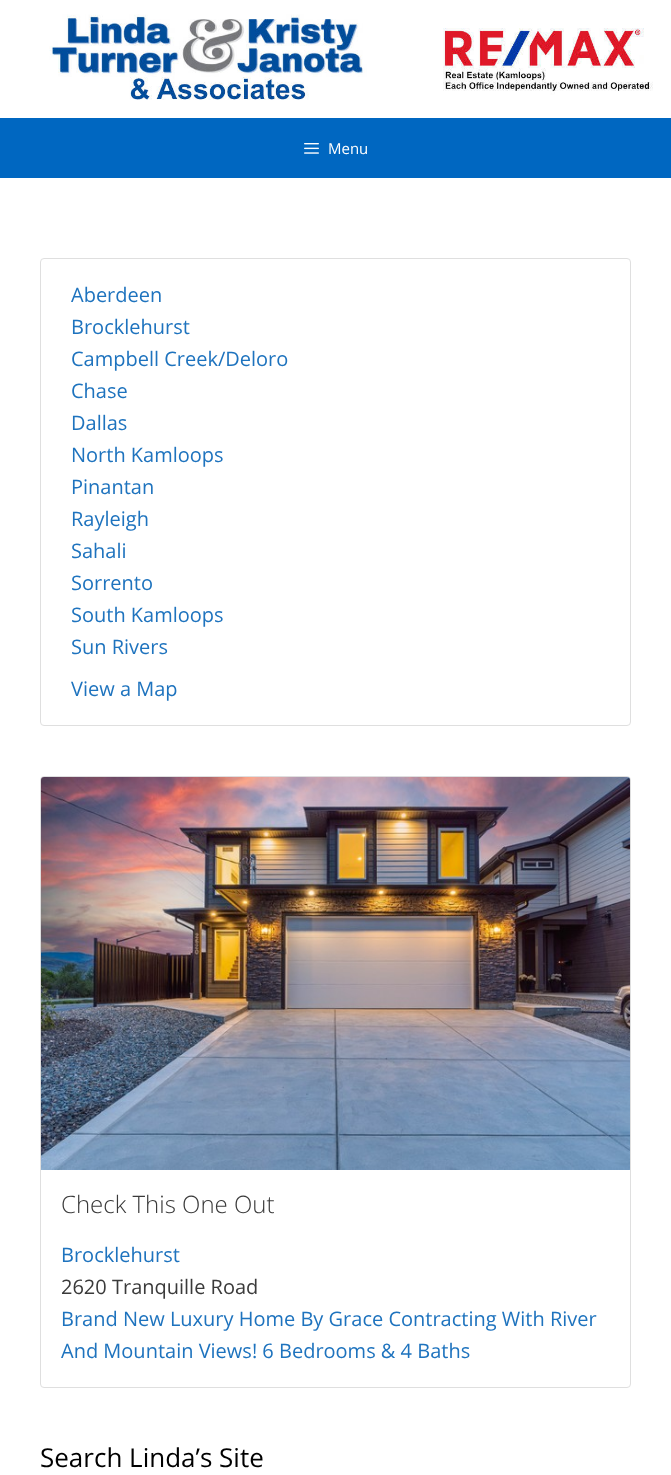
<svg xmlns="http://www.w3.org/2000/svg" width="671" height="1475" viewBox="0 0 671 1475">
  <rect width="100%" height="100%" fill="#fff"/>
  <image x="49" y="14" width="604" height="86" href="img/1.png"/>
  <path d="M0 118h671v60H0z" fill="#0067c1"/>
  <image x="304" y="143" width="15" height="11" href="img/2.png"/>
  <rect x="40.5" y="258.5" width="590" height="467" rx="3.5" fill="none" stroke="#dfdfdf"/>
  <rect x="40.5" y="776.5" width="590" height="611" rx="3.5" fill="none" stroke="#dfdfdf"/>
  <image x="41" y="777" width="589" height="393" href="img/3.png"/>
  <text x="328" y="154" font-family="Open Sans" font-size="15" fill="#fff">Menu</text>
  <g font-family="Open Sans" font-size="20" fill="#1e73be">
    <text x="71" y="302">Aberdeen</text>
    <text x="71" y="334">Brocklehurst</text>
    <text x="71" y="366">Campbell Creek/Deloro</text>
    <text x="71" y="398">Chase</text>
    <text x="71" y="430">Dallas</text>
    <text x="71" y="462">North Kamloops</text>
    <text x="71" y="494">Pinantan</text>
    <text x="71" y="526">Rayleigh</text>
    <text x="71" y="558">Sahali</text>
    <text x="71" y="590">Sorrento</text>
    <text x="71" y="622">South Kamloops</text>
    <text x="71" y="654">Sun Rivers</text>
    <text x="71" y="696">View a Map</text>
  </g>
  <text x="61" y="1213" font-family="Open Sans" font-size="24" font-weight="300" fill="#3a3a3a">Check This One Out</text>
  <text x="61" y="1262" font-family="Open Sans" font-size="20" fill="#1e73be">Brocklehurst</text>
  <text x="61" y="1294" font-family="Open Sans" font-size="20" fill="#3a3a3a">2620 Tranquille Road</text>
  <g font-family="Open Sans" font-size="20" fill="#1e73be">
    <text x="61" y="1326">Brand New Luxury Home By Grace Contracting With River</text>
    <text x="61" y="1358">And Mountain Views! 6 Bedrooms &amp; 4 Baths</text>
  </g>
  <text x="40" y="1467" font-family="Open Sans" font-size="26" fill="#000">Search Linda’s Site</text>
</svg>
